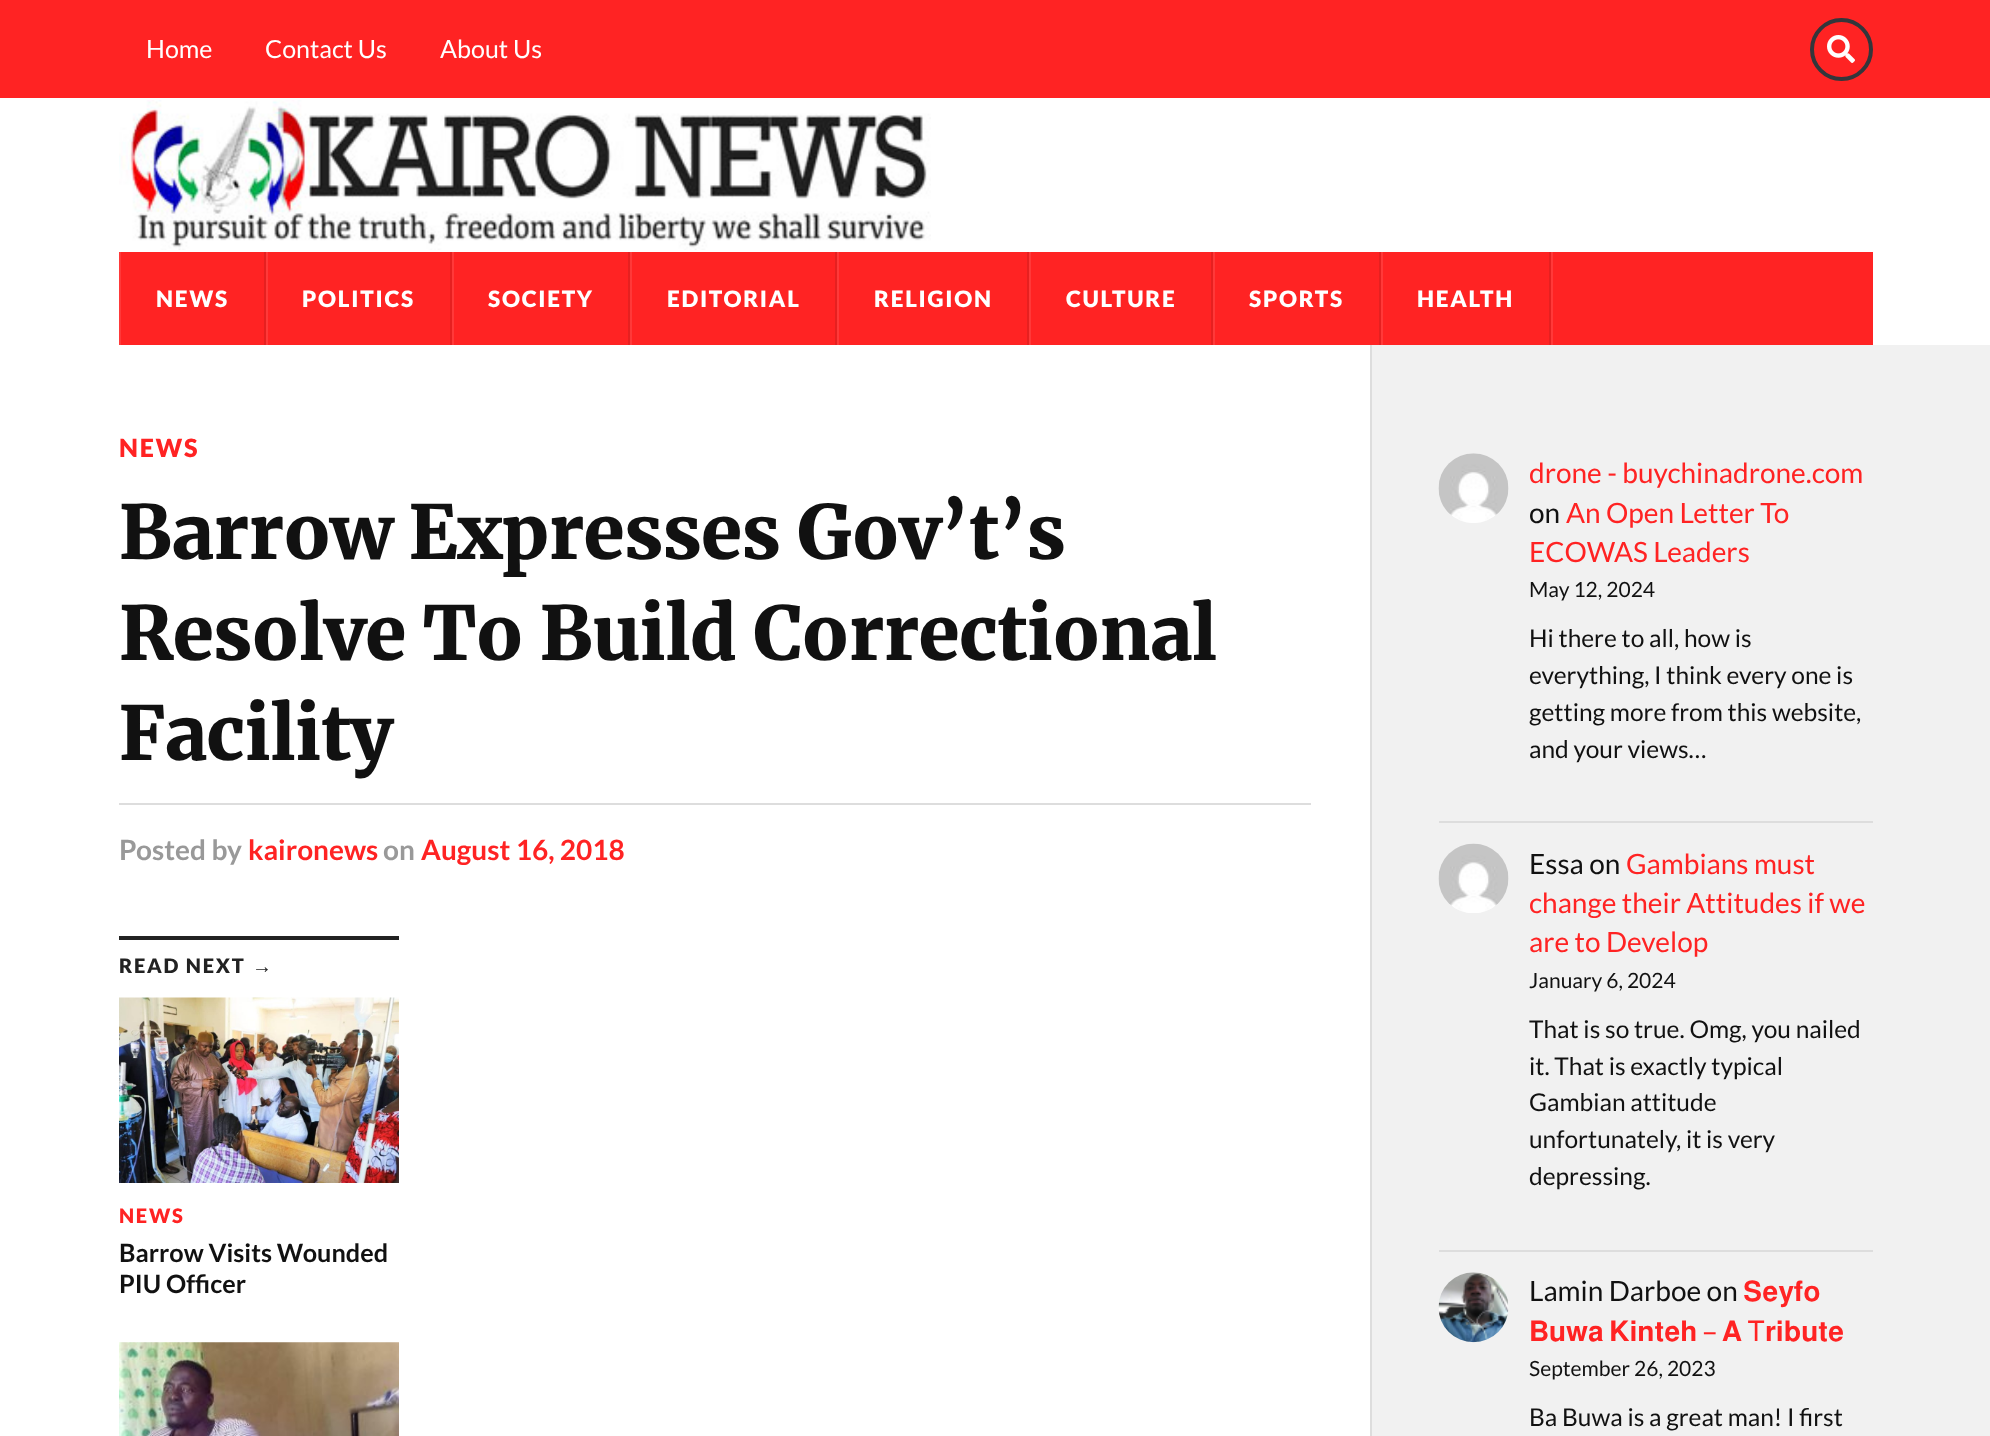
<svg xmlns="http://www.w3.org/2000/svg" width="1990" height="1436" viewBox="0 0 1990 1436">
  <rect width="100%" height="100%" fill="#f1f1f1"/>
  <path d="M0 0h1990v98H0z" fill="#ff2323"/>
  <circle cx="1841.5" cy="49.5" r="29.5" fill="none" stroke="#33363b" stroke-width="4"/>
  <image x="1827" y="35" width="28" height="28" href="img/1.png"/>
  <path d="M0 98h1990v247H0z" fill="#fff"/>
  <image x="119" y="100" width="812" height="150" href="img/2.png"/>
  <path d="M121 252h1752v93H121z" fill="#ff2323"/>
  <path d="M264 252h2v93H264z" fill="#e62020"/>
  <path d="M119 252h2v93H119z" fill="#ff3939"/>
  <path d="M450 252h2v93H450z" fill="#e62020"/>
  <path d="M266 252h2v93H266z" fill="#ff3939"/>
  <path d="M628 252h2v93H628z" fill="#e62020"/>
  <path d="M452 252h2v93H452z" fill="#ff3939"/>
  <path d="M835 252h2v93H835z" fill="#e62020"/>
  <path d="M630 252h2v93H630z" fill="#ff3939"/>
  <path d="M1027 252h2v93H1027z" fill="#e62020"/>
  <path d="M837 252h2v93H837z" fill="#ff3939"/>
  <path d="M1211 252h2v93H1211z" fill="#e62020"/>
  <path d="M1029 252h2v93H1029z" fill="#ff3939"/>
  <path d="M1379 252h2v93H1379z" fill="#e62020"/>
  <path d="M1213 252h2v93H1213z" fill="#ff3939"/>
  <path d="M1549 252h2v93H1549z" fill="#e62020"/>
  <path d="M1381 252h2v93H1381z" fill="#ff3939"/>
  <path d="M1551 252h2v93H1551z" fill="#ff3939"/>
  <path d="M0 345h1370v1091H0z" fill="#fff"/>
  <path d="M119 803h1192v2H119z" fill="#ddd"/>
  <path d="M119 936h280v4H119z" fill="#222"/>
  <image x="119" y="997" width="280" height="186" href="img/3.png"/>
  <image x="119" y="1342" width="280" height="94" href="img/4.png"/>
  <path d="M1370 345h2v1091H1370z" fill="#ddd"/>
  <path d="M1439 821h434v2H1439z" fill="#ddd"/>
  <image x="1438" y="453" width="71" height="70" href="img/5.png"/>
  <path d="M1439 1250h434v2H1439z" fill="#ddd"/>
  <image x="1438" y="843" width="71" height="70" href="img/6.png"/>
  <image x="1438" y="1272" width="71" height="71" href="img/7.png"/>
  <g font-family="Lato" font-size="25" fill="#fff">
    <text x="146" y="58">Home</text>
    <text x="265" y="58">Contact Us</text>
    <text x="440" y="58">About Us</text>
  </g>
  <g font-family="Lato" font-size="22.5" font-weight="900" letter-spacing="1.75" fill="#fff">
    <text x="156" y="307">NEWS</text>
    <text x="302" y="307">POLITICS</text>
    <text x="488" y="307">SOCIETY</text>
    <text x="667" y="307">EDITORIAL</text>
    <text x="874" y="307">RELIGION</text>
    <text x="1066" y="307">CULTURE</text>
    <text x="1249" y="307">SPORTS</text>
    <text x="1417" y="307">HEALTH</text>
  </g>
  <text x="119" y="457" font-family="Lato" font-size="25" font-weight="900" letter-spacing="1.75" fill="#ff2323">NEWS</text>
  <g font-family="Merriweather" font-size="74.4" font-weight="900" letter-spacing="-0.75" fill="#111">
    <text x="119" y="559">Barrow Expresses Gov’t’s</text>
    <text x="119" y="660">Resolve To Build Correctional</text>
    <text x="119" y="760">Facility</text>
  </g>
  <text x="119" y="860" font-family="Lato" font-size="28" font-weight="bold" fill="#999">Posted by</text>
  <text x="248" y="860" font-family="Lato" font-size="28" font-weight="bold" fill="#ff2323">kaironews</text>
  <text x="383" y="860" font-family="Lato" font-size="28" font-weight="bold" fill="#999">on</text>
  <text x="421" y="860" font-family="Lato" font-size="28" font-weight="bold" fill="#ff2323">August 16, 2018</text>
  <text x="119" y="973" font-family="Lato" font-size="20" font-weight="900" letter-spacing="1.75" fill="#222">READ NEXT</text>
  <text x="252" y="973" font-family="Liberation Sans" font-size="20" font-weight="bold" letter-spacing="1.75" fill="#222">→</text>
  <text x="119" y="1223" font-family="Lato" font-size="20" font-weight="900" letter-spacing="1.75" fill="#ff2323">NEWS</text>
  <g font-family="Lato" font-size="25.25" font-weight="bold" fill="#111">
    <text x="119" y="1262">Barrow Visits Wounded</text>
    <text x="119" y="1293">PIU Officer</text>
  </g>
  <text x="1529" y="483" font-family="Lato" font-size="28" fill="#ff2323">drone - buychinadrone.com</text>
  <text x="1529" y="523" font-family="Lato" font-size="28" fill="#111">on</text>
  <g font-family="Lato" font-size="28" fill="#ff2323">
    <text x="1566" y="523">An Open Letter To</text>
    <text x="1529" y="562">ECOWAS Leaders</text>
  </g>
  <text x="1529" y="597" font-family="Lato" font-size="21" fill="#111">May 12, 2024</text>
  <g font-family="Lato" font-size="24.5" fill="#111">
    <text x="1529" y="647">Hi there to all, how is</text>
    <text x="1529" y="684">everything, I think every one is</text>
    <text x="1529" y="721">getting more from this website,</text>
    <text x="1529" y="758">and your views…</text>
  </g>
  <text x="1529" y="874" font-family="Lato" font-size="28" fill="#111">Essa on</text>
  <g font-family="Lato" font-size="28" fill="#ff2323">
    <text x="1626" y="874">Gambians must</text>
    <text x="1529" y="913">change their Attitudes if we</text>
    <text x="1529" y="952">are to Develop</text>
  </g>
  <text x="1529" y="988" font-family="Lato" font-size="21" fill="#111">January 6, 2024</text>
  <g font-family="Lato" font-size="24.5" fill="#111">
    <text x="1529" y="1038">That is so true. Omg, you nailed</text>
    <text x="1529" y="1075">it. That is exactly typical</text>
    <text x="1529" y="1111">Gambian attitude</text>
    <text x="1529" y="1148">unfortunately, it is very</text>
    <text x="1529" y="1185">depressing.</text>
  </g>
  <text x="1529" y="1301" font-family="Lato" font-size="28" fill="#111">Lamin Darboe on</text>
  <g font-family="FreeSans" font-size="28" fill="#ff2323">
    <text x="1743" y="1301">𝐒𝐞𝐲𝐟𝐨</text>
    <text x="1529" y="1341" word-spacing="-1.5">𝐁𝐮𝐰𝐚 𝐊𝐢𝐧𝐭𝐞𝐡 – 𝐀 T𝐫𝐢𝐛𝐮𝐭𝐞</text>
  </g>
  <text x="1529" y="1376" font-family="Lato" font-size="21" fill="#111">September 26, 2023</text>
  <text x="1529" y="1426" font-family="Lato" font-size="24.5" fill="#111">Ba Buwa is a great man! I first</text>
</svg>
